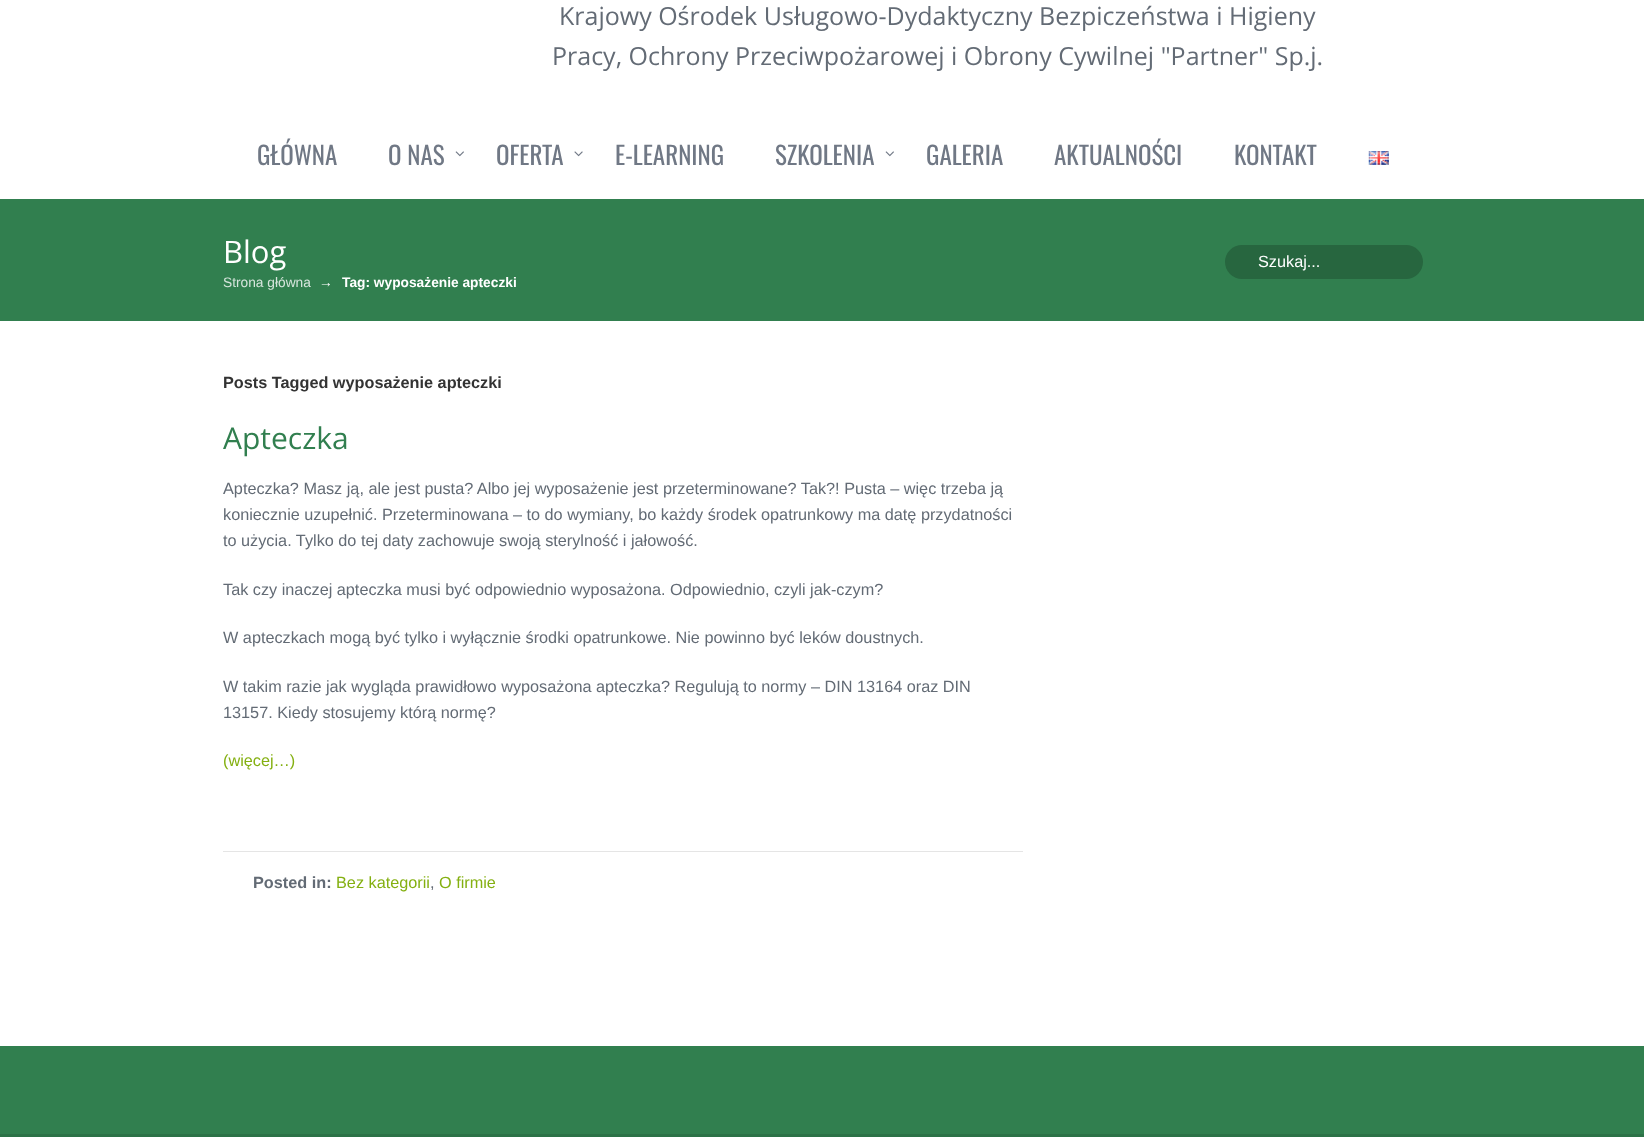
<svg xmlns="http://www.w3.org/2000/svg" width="1644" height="1137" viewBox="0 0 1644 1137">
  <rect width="100%" height="100%" fill="#fff"/>
  <image x="455" y="151" width="9" height="6" href="img/1.png"/>
  <image x="574" y="151" width="9" height="6" href="img/2.png"/>
  <image x="885" y="151" width="9" height="6" href="img/1.png"/>
  <image x="1368" y="151" width="21" height="14" href="img/3.png"/>
  <path d="M0 199h1644v122H0z" fill="#317f4f"/>
  <rect x="1225" y="245" width="198" height="34" rx="17" fill="#27663f"/>
  <path d="M223 851h800v1H223z" fill="#e5e5e5"/>
  <path d="M0 1046h1644v88H0z" fill="#317f4f"/>
  <path d="M0 1134h1644v3H0z" fill="#2c7247"/>
  <g font-family="Open Sans" font-size="25" fill="#636b75">
    <text x="559" y="25">Krajowy Ośrodek Usługowo-Dydaktyczny Bezpiczeństwa i Higieny</text>
    <text x="552" y="65">Pracy, Ochrony Przeciwpożarowej i Obrony Cywilnej "Partner" Sp.j.</text>
  </g>
  <g font-family="Oswald" font-size="25" fill="#707885">
    <text x="257" y="165">GŁÓWNA</text>
    <text x="388" y="165">O NAS</text>
    <text x="496" y="165">OFERTA</text>
    <text x="615" y="165">E-LEARNING</text>
    <text x="775" y="165">SZKOLENIA</text>
    <text x="926" y="165">GALERIA</text>
    <text x="1054" y="165">AKTUALNOŚCI</text>
    <text x="1234" y="165">KONTAKT</text>
  </g>
  <text x="223" y="263" font-family="Open Sans" font-size="31" fill="#fff">Blog</text>
  <text x="1258" y="267" font-family="Liberation Sans" font-size="16.25" fill="#fff">Szukaj...</text>
  <text x="223" y="287" font-family="Liberation Sans" font-size="13.75" fill="#d6e5dc">Strona główna</text>
  <text x="319" y="287" font-family="Liberation Sans" font-size="13.75" fill="#fff">→</text>
  <text x="342" y="287" font-family="Liberation Sans" font-size="13.75" font-weight="bold" fill="#fff">Tag: wyposażenie apteczki</text>
  <text x="223" y="388" font-family="Liberation Sans" font-size="16.25" font-weight="bold" fill="#333">Posts Tagged wyposażenie apteczki</text>
  <text x="223" y="449" font-family="Open Sans" font-size="30" fill="#317f4f">Apteczka</text>
  <g font-family="Liberation Sans" font-size="16.25" fill="#636b75">
    <text x="223" y="494">Apteczka? Masz ją, ale jest pusta? Albo jej wyposażenie jest przeterminowane? Tak?! Pusta – więc trzeba ją</text>
    <text x="223" y="520">koniecznie uzupełnić. Przeterminowana – to do wymiany, bo każdy środek opatrunkowy ma datę przydatności</text>
    <text x="223" y="546">to użycia. Tylko do tej daty zachowuje swoją sterylność i jałowość.</text>
    <text x="223" y="595">Tak czy inaczej apteczka musi być odpowiednio wyposażona. Odpowiednio, czyli jak-czym?</text>
    <text x="223" y="643">W apteczkach mogą być tylko i wyłącznie środki opatrunkowe. Nie powinno być leków doustnych.</text>
    <text x="223" y="692">W takim razie jak wygląda prawidłowo wyposażona apteczka? Regulują to normy – DIN 13164 oraz DIN</text>
    <text x="223" y="718">13157. Kiedy stosujemy którą normę?</text>
  </g>
  <text x="223" y="766" font-family="Liberation Sans" font-size="16.25" fill="#84b011">(więcej…)</text>
  <text x="253" y="888" font-family="Liberation Sans" font-size="16.25" font-weight="bold" fill="#636b75">Posted in:</text>
  <text x="336" y="888" font-family="Liberation Sans" font-size="16.25" fill="#84b011">Bez kategorii</text>
  <text x="430" y="888" font-family="Liberation Sans" font-size="16.25" fill="#636b75">,</text>
  <text x="439" y="888" font-family="Liberation Sans" font-size="16.25" fill="#84b011">O firmie</text>
</svg>
